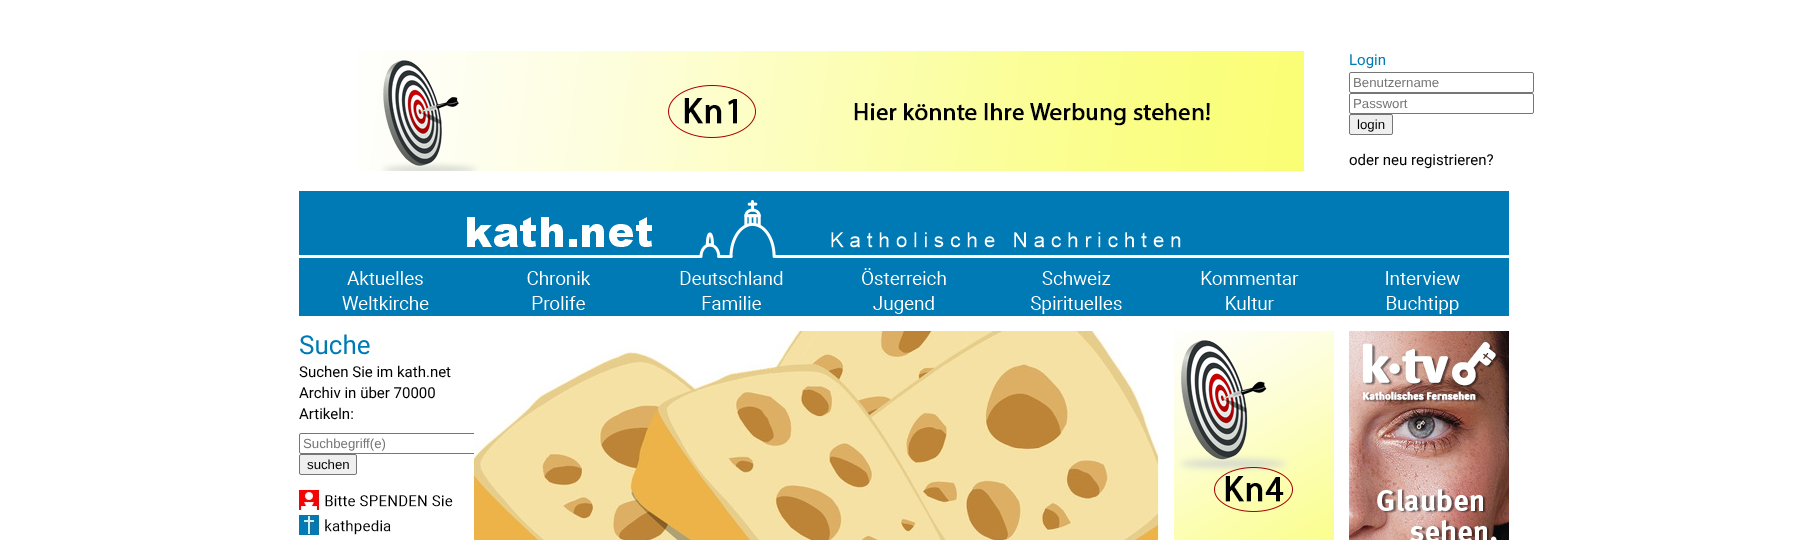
<svg xmlns="http://www.w3.org/2000/svg" width="1807" height="540" viewBox="0 0 1807 540">
  <rect width="100%" height="100%" fill="#fff"/>
  <image x="358" y="51" width="946" height="120" href="img/1.png"/>
  <rect x="1349.5" y="72.5" width="184" height="20" rx="1.5" fill="none" stroke="#767676"/>
  <rect x="1349.5" y="93.5" width="184" height="20" rx="1.5" fill="none" stroke="#767676"/>
  <rect x="1349.5" y="114.5" width="43" height="20" rx="1.5" fill="#efefef" stroke="#767676"/>
  <image x="299" y="191" width="1210" height="75" href="img/2.png"/>
  <image x="299" y="266" width="173" height="25" href="img/3.png"/>
  <image x="472" y="266" width="173" height="25" href="img/4.png"/>
  <image x="645" y="266" width="173" height="25" href="img/5.png"/>
  <image x="818" y="266" width="172" height="25" href="img/6.png"/>
  <image x="990" y="266" width="173" height="25" href="img/7.png"/>
  <image x="1163" y="266" width="173" height="25" href="img/8.png"/>
  <image x="1336" y="266" width="173" height="25" href="img/9.png"/>
  <image x="299" y="291" width="173" height="25" href="img/10.png"/>
  <image x="472" y="291" width="173" height="25" href="img/11.png"/>
  <image x="645" y="291" width="173" height="25" href="img/12.png"/>
  <image x="818" y="291" width="172" height="25" href="img/13.png"/>
  <image x="990" y="291" width="173" height="25" href="img/14.png"/>
  <image x="1163" y="291" width="173" height="25" href="img/15.png"/>
  <image x="1336" y="291" width="173" height="25" href="img/16.png"/>
  <rect x="299.5" y="433.5" width="184" height="20" rx="1.5" fill="none" stroke="#767676"/>
  <rect x="299.5" y="454.5" width="57" height="20" rx="1.5" fill="#efefef" stroke="#767676"/>
  <image x="299" y="490" width="154" height="20" href="img/17.png"/>
  <image x="299" y="515" width="92" height="20" href="img/18.png"/>
  <image x="474" y="331" width="685" height="209" href="img/19.png"/>
  <image x="1174" y="331" width="160" height="209" href="img/20.png"/>
  <image x="1349" y="331" width="160" height="209" href="img/21.png"/>
  <text x="1349" y="65" font-family="Roboto" font-size="15" fill="#007ab4">Login</text>
  <g font-family="Liberation Sans" font-size="13.25" fill="#757575">
    <text x="1353" y="87">Benutzername</text>
    <text x="1353" y="108">Passwort</text>
  </g>
  <text x="1357" y="129" font-family="Liberation Sans" font-size="13.25" fill="#000">login</text>
  <text x="1349" y="165" font-family="Roboto" font-size="15" fill="#000">oder neu registrieren?</text>
  <text x="299" y="354" font-family="Roboto" font-size="26" fill="#007ab4">Suche</text>
  <g font-family="Roboto" font-size="15" fill="#000">
    <text x="299" y="377">Suchen Sie im kath.net</text>
    <text x="299" y="398">Archiv in über 70000</text>
    <text x="299" y="419">Artikeln:</text>
  </g>
  <text x="303" y="448" font-family="Liberation Sans" font-size="13.25" fill="#757575">Suchbegriff(e)</text>
  <text x="307" y="469" font-family="Liberation Sans" font-size="13.25" fill="#000">suchen</text>
</svg>
